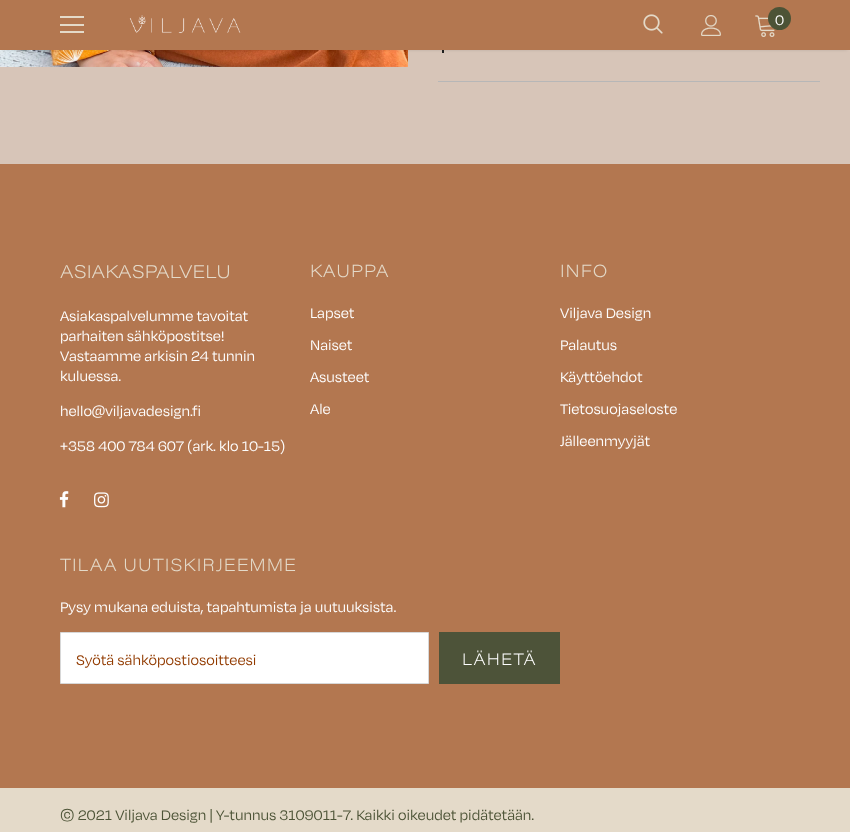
<svg xmlns="http://www.w3.org/2000/svg" width="850" height="832" viewBox="0 0 850 832">
  <rect width="100%" height="100%" fill="#d7c5b8"/>
  <image x="0" y="50" width="408" height="17" href="img/5.png"/>
  <path d="M442 43h2v10H442z" fill="#202020"/>
  <path d="M3 6h844v44H3z" fill="#0000001f" filter="blur(1.5px)"/>
  <path d="M0 0h850v50H0z" fill="#b37750"/>
  <path d="M60 16h24v2H60z" fill="#e4dac9"/>
  <path d="M60 24h24v2H60z" fill="#e4dac9"/>
  <path d="M60 31h24v2H60z" fill="#e4dac9"/>
  <image x="129" y="15" width="112" height="19" href="img/1.png"/>
  <image x="643" y="14" width="20" height="20" href="img/2.png"/>
  <image x="701" y="15" width="20" height="21" href="img/3.png"/>
  <image x="755" y="15" width="20" height="22" href="img/4.png"/>
  <circle cx="779.5" cy="18.5" r="11.5" fill="#4c5336"/>
  <path d="M438 81h382v1H438z" fill="#b7b7b7"/>
  <path d="M0 164h850v624H0z" fill="#b37750"/>
  <image x="59" y="491" width="10" height="17" href="img/6.png"/>
  <image x="94" y="492" width="15" height="16" href="img/7.png"/>
  <path d="M60.5 632.5h368v51H60.5z" fill="#fff" stroke="#d7d7d7"/>
  <path d="M439 632h121v52H439z" fill="#4d5339"/>
  <path d="M0 788h850v44H0z" fill="#e4dac9"/>
  <text x="775" y="25" font-family="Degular" font-size="16" fill="#fefefe">0</text>
  <text x="60" y="278" font-family="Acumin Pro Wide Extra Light" font-size="18" font-weight="200" fill="#e4dac9">ASIAKASPALVELU</text>
  <g font-family="Degular" font-size="16" fill="#fefefe">
    <text x="60" y="321">Asiakaspalvelumme tavoitat</text>
    <text x="60" y="341">parhaiten sähköpostitse!</text>
    <text x="60" y="361">Vastaamme arkisin 24 tunnin</text>
    <text x="60" y="381">kuluessa.</text>
    <text x="60" y="416">hello@viljavadesign.fi</text>
    <text x="60" y="451">+358 400 784 607 (ark. klo 10-15)</text>
  </g>
  <text x="310" y="277" font-family="Acumin Pro Wide Extra Light" font-size="17" font-weight="200" letter-spacing="0.8" fill="#e4dac9">KAUPPA</text>
  <g font-family="Degular" font-size="16" fill="#fefefe">
    <text x="310" y="318">Lapset</text>
    <text x="310" y="350">Naiset</text>
    <text x="310" y="382">Asusteet</text>
    <text x="310" y="414">Ale</text>
  </g>
  <text x="560" y="277" font-family="Acumin Pro Wide Extra Light" font-size="17" font-weight="200" letter-spacing="0.8" fill="#e4dac9">INFO</text>
  <g font-family="Degular" font-size="16" fill="#fefefe">
    <text x="560" y="318">Viljava Design</text>
    <text x="560" y="350">Palautus</text>
    <text x="560" y="382">Käyttöehdot</text>
    <text x="560" y="414">Tietosuojaseloste</text>
    <text x="560" y="446">Jälleenmyyjät</text>
  </g>
  <text x="60" y="571" font-family="Acumin Pro Wide Extra Light" font-size="17" font-weight="200" letter-spacing="0.8" fill="#e4dac9">TILAA UUTISKIRJEEMME</text>
  <text x="60" y="612" font-family="Degular" font-size="16" fill="#fefefe">Pysy mukana eduista, tapahtumista ja uutuuksista.</text>
  <text x="76" y="665" font-family="Degular" font-size="16" fill="#923b00">Syötä sähköpostiosoitteesi</text>
  <text x="462" y="665" font-family="Acumin Pro Wide Extra Light" font-size="16" font-weight="200" letter-spacing="1" fill="#fefefe">LÄHETÄ</text>
  <text x="60" y="820" font-family="Degular" font-size="16" fill="#4c5336">© 2021 Viljava Design | Y-tunnus 3109011-7. Kaikki oikeudet pidätetään.</text>
</svg>
